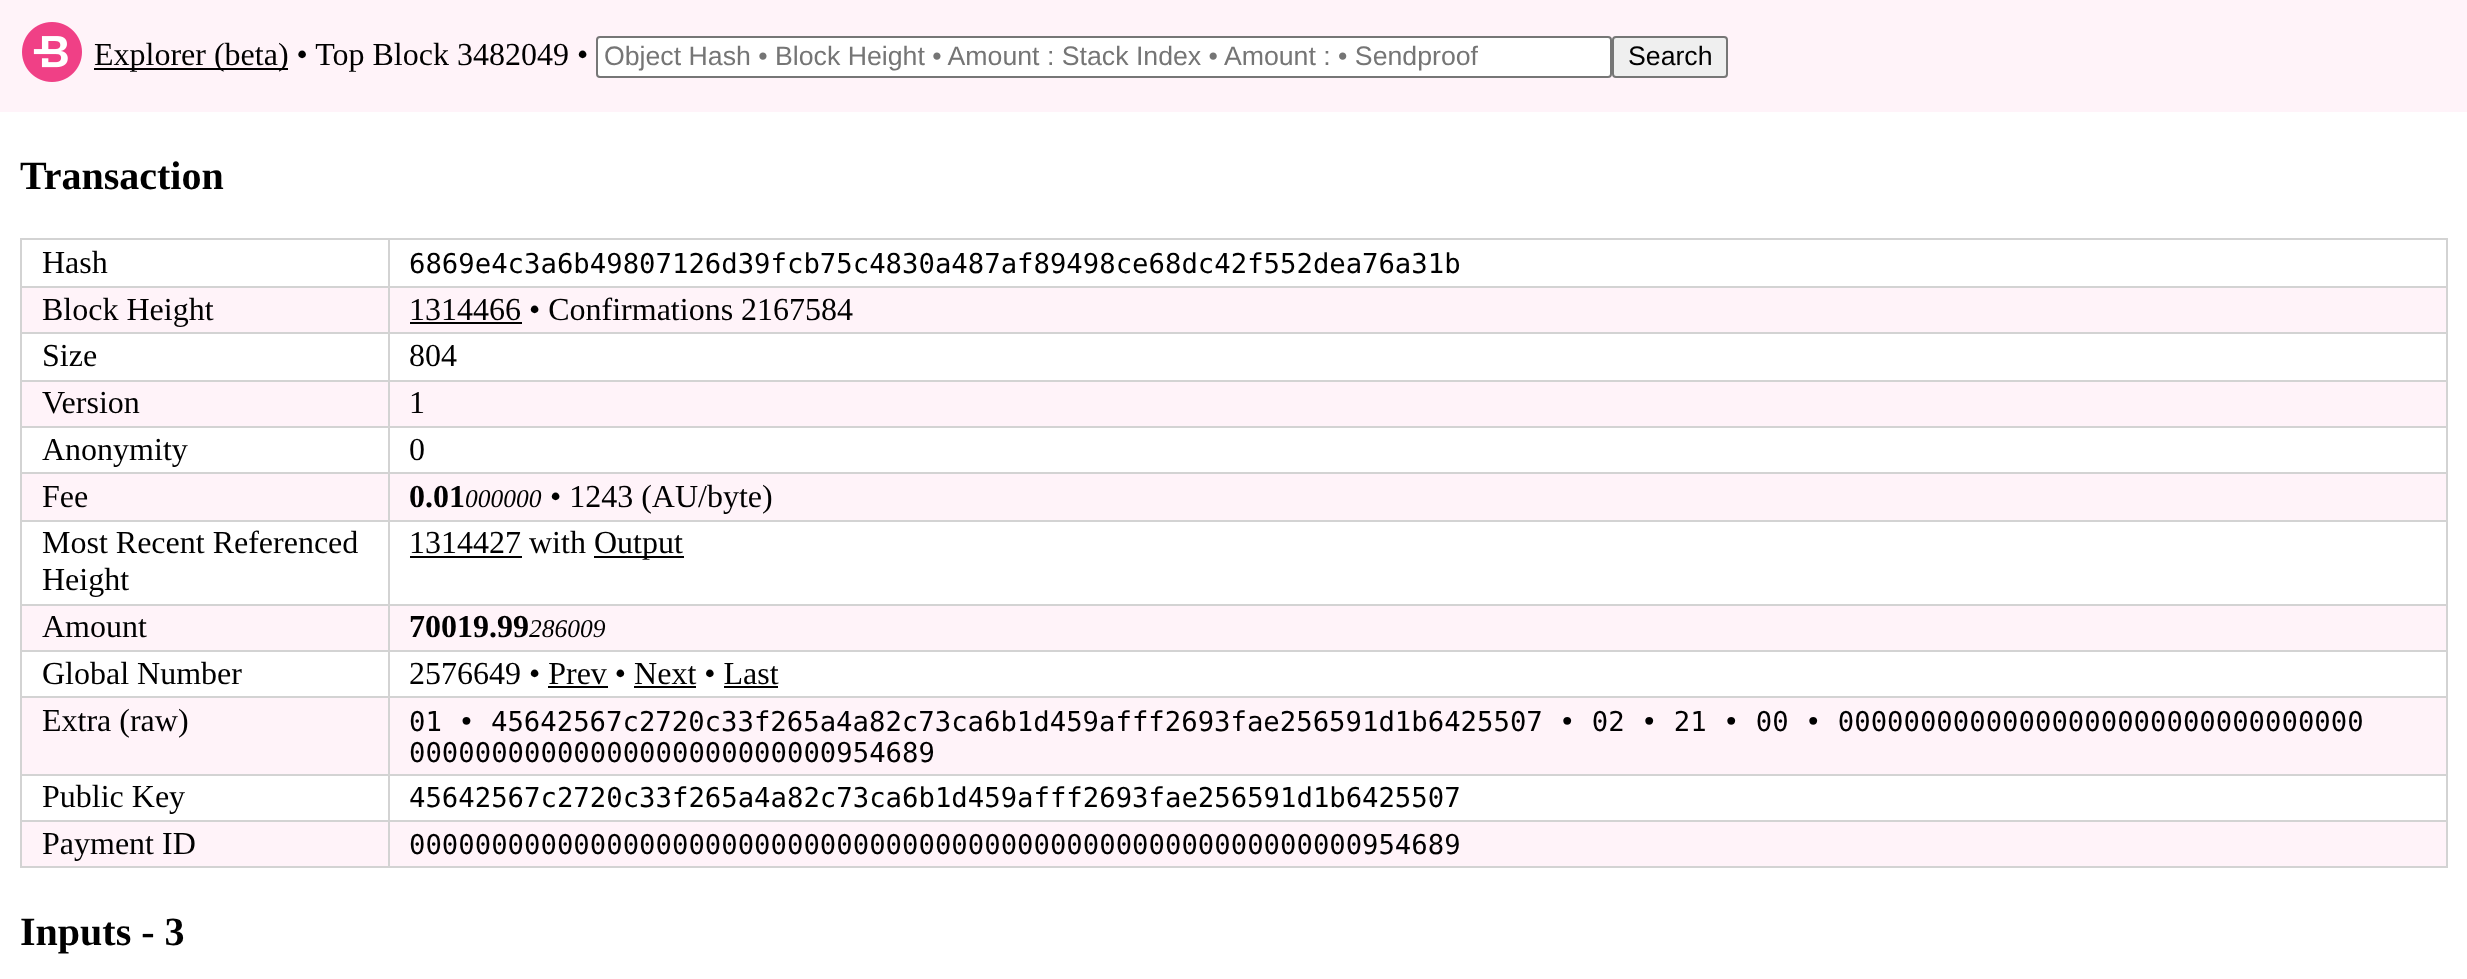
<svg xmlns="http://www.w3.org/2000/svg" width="2467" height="979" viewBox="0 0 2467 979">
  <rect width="100%" height="100%" fill="#fff"/>
  <path d="M0 0h2467v112H0z" fill="#fff3f9"/>
  <image x="22" y="22" width="60" height="60" href="img/1.png"/>
  <path d="M94 68h194v2H94z" fill="#000"/>
  <rect x="597" y="37" width="1014" height="40" rx="3" fill="#fff" stroke="#767676" stroke-width="2"/>
  <rect x="1613" y="37" width="114" height="40" rx="3" fill="#efefef" stroke="#767676" stroke-width="2"/>
  <path d="M388 238h2060v2H388z" fill="#d3d3d3"/>
  <path d="M388 286h2060v2H388z" fill="#d3d3d3"/>
  <path d="M22 288h2424v44H22z" fill="#fff3f9"/>
  <path d="M388 332h2060v2H388z" fill="#d3d3d3"/>
  <path d="M388 380h2060v2H388z" fill="#d3d3d3"/>
  <path d="M22 382h2424v44H22z" fill="#fff3f9"/>
  <path d="M388 426h2060v2H388z" fill="#d3d3d3"/>
  <path d="M388 472h2060v2H388z" fill="#d3d3d3"/>
  <path d="M22 474h2424v46H22z" fill="#fff3f9"/>
  <path d="M388 520h2060v2H388z" fill="#d3d3d3"/>
  <path d="M388 604h2060v2H388z" fill="#d3d3d3"/>
  <path d="M22 606h2424v44H22z" fill="#fff3f9"/>
  <path d="M388 650h2060v2H388z" fill="#d3d3d3"/>
  <path d="M388 696h2060v2H388z" fill="#d3d3d3"/>
  <path d="M22 698h2424v76H22z" fill="#fff3f9"/>
  <path d="M388 774h2060v2H388z" fill="#d3d3d3"/>
  <path d="M388 820h2060v2H388z" fill="#d3d3d3"/>
  <path d="M22 822h2424v44H22z" fill="#fff3f9"/>
  <path d="M2446 820h2v48H2446z" fill="#d3d3d3"/>
  <path d="M388 866h2060v2H388z" fill="#d3d3d3"/>
  <path d="M388 820h2v48H388z" fill="#d3d3d3"/>
  <path d="M20 820h370v2H20z" fill="#d3d3d3"/>
  <path d="M388 774h2v48H388z" fill="#d3d3d3"/>
  <path d="M20 774h370v2H20z" fill="#d3d3d3"/>
  <path d="M388 696h2v80H388z" fill="#d3d3d3"/>
  <path d="M20 696h370v2H20z" fill="#d3d3d3"/>
  <path d="M388 650h2v48H388z" fill="#d3d3d3"/>
  <path d="M20 650h370v2H20z" fill="#d3d3d3"/>
  <path d="M388 604h2v48H388z" fill="#d3d3d3"/>
  <path d="M20 604h370v2H20z" fill="#d3d3d3"/>
  <path d="M388 520h2v86H388z" fill="#d3d3d3"/>
  <path d="M20 520h370v2H20z" fill="#d3d3d3"/>
  <path d="M388 472h2v50H388z" fill="#d3d3d3"/>
  <path d="M20 472h370v2H20z" fill="#d3d3d3"/>
  <path d="M388 426h2v48H388z" fill="#d3d3d3"/>
  <path d="M20 426h370v2H20z" fill="#d3d3d3"/>
  <path d="M388 380h2v48H388z" fill="#d3d3d3"/>
  <path d="M20 380h370v2H20z" fill="#d3d3d3"/>
  <path d="M388 332h2v50H388z" fill="#d3d3d3"/>
  <path d="M20 332h370v2H20z" fill="#d3d3d3"/>
  <path d="M388 286h2v48H388z" fill="#d3d3d3"/>
  <path d="M20 286h370v2H20z" fill="#d3d3d3"/>
  <path d="M388 238h2v50H388z" fill="#d3d3d3"/>
  <path d="M20 238h370v2H20z" fill="#d3d3d3"/>
  <path d="M20 866h370v2H20z" fill="#d3d3d3"/>
  <path d="M20 820h2v48H20z" fill="#d3d3d3"/>
  <path d="M20 774h2v48H20z" fill="#d3d3d3"/>
  <path d="M20 696h2v80H20z" fill="#d3d3d3"/>
  <path d="M20 650h2v48H20z" fill="#d3d3d3"/>
  <path d="M20 604h2v48H20z" fill="#d3d3d3"/>
  <path d="M20 520h2v86H20z" fill="#d3d3d3"/>
  <path d="M20 472h2v50H20z" fill="#d3d3d3"/>
  <path d="M20 426h2v48H20z" fill="#d3d3d3"/>
  <path d="M20 380h2v48H20z" fill="#d3d3d3"/>
  <path d="M20 332h2v50H20z" fill="#d3d3d3"/>
  <path d="M20 286h2v48H20z" fill="#d3d3d3"/>
  <path d="M20 238h2v50H20z" fill="#d3d3d3"/>
  <path d="M2446 774h2v48H2446z" fill="#d3d3d3"/>
  <path d="M2446 696h2v80H2446z" fill="#d3d3d3"/>
  <path d="M2446 650h2v48H2446z" fill="#d3d3d3"/>
  <path d="M2446 604h2v48H2446z" fill="#d3d3d3"/>
  <path d="M2446 520h2v86H2446z" fill="#d3d3d3"/>
  <path d="M2446 472h2v50H2446z" fill="#d3d3d3"/>
  <path d="M2446 426h2v48H2446z" fill="#d3d3d3"/>
  <path d="M2446 380h2v48H2446z" fill="#d3d3d3"/>
  <path d="M2446 332h2v50H2446z" fill="#d3d3d3"/>
  <path d="M2446 286h2v48H2446z" fill="#d3d3d3"/>
  <path d="M2446 238h2v50H2446z" fill="#d3d3d3"/>
  <path d="M410 322h112v2H410z" fill="#000"/>
  <path d="M410 556h112v2H410z" fill="#000"/>
  <path d="M594 556h90v2H594z" fill="#000"/>
  <path d="M548 686h60v2H548z" fill="#000"/>
  <path d="M634 686h62v2H634z" fill="#000"/>
  <path d="M724 686h54v2H724z" fill="#000"/>
  <text x="94" y="65" font-family="Liberation Serif" font-size="32" fill="#000">Explorer (beta) • Top Block 3482049 •</text>
  <text x="604" y="65" font-family="Liberation Sans" font-size="26.7" fill="#757575">Object Hash • Block Height • Amount : Stack Index • Amount : • Sendproof</text>
  <text x="1628" y="65" font-family="Liberation Sans" font-size="26.7" fill="#000">Search</text>
  <text x="20" y="189" font-family="Liberation Serif" font-size="40" font-weight="bold" fill="#000">Transaction</text>
  <text x="42" y="273" font-family="Liberation Serif" font-size="32" fill="#000">Hash</text>
  <g font-family="DejaVu Sans Mono" font-size="27.3" fill="#000">
    <text x="409" y="273">6869e4c3a6b49807126d39fcb75c4830a487af89498ce68dc42f552dea</text>
    <text x="1362" y="273">76a31b</text>
  </g>
  <g font-family="Liberation Serif" font-size="32" fill="#000">
    <text x="42" y="320">Block Height</text>
    <text x="409" y="320">1314466 • Confirmations 2167584</text>
    <text x="42" y="366">Size</text>
    <text x="409" y="366">804</text>
    <text x="42" y="413">Version</text>
    <text x="409" y="413">1</text>
    <text x="42" y="460">Anonymity</text>
    <text x="409" y="460">0</text>
    <text x="42" y="507">Fee</text>
  </g>
  <text x="409" y="507" font-family="Liberation Serif" font-size="32" font-weight="bold" fill="#000">0.01</text>
  <text x="465" y="507" font-family="Liberation Serif" font-size="25.5" font-style="italic" fill="#000">000000</text>
  <g font-family="Liberation Serif" font-size="32" fill="#000">
    <text x="550" y="507">• 1243 (AU/byte)</text>
    <text x="42" y="553">Most Recent Referenced</text>
    <text x="42" y="590">Height</text>
    <text x="409" y="553">1314427 with</text>
    <text x="594" y="553">Output</text>
    <text x="42" y="637">Amount</text>
  </g>
  <text x="409" y="637" font-family="Liberation Serif" font-size="32" font-weight="bold" fill="#000">70019.99</text>
  <text x="529" y="637" font-family="Liberation Serif" font-size="25.5" font-style="italic" fill="#000">286009</text>
  <g font-family="Liberation Serif" font-size="32" fill="#000">
    <text x="42" y="684">Global Number</text>
    <text x="409" y="684">2576649 • Prev • Next • Last</text>
    <text x="42" y="731">Extra (raw)</text>
  </g>
  <g font-family="DejaVu Sans Mono" font-size="27.3" fill="#000">
    <text x="409" y="731" word-spacing="-0.1">01 • 45642567c2720c33f265a4a82c73ca6b1d459afff2693fae256591d1b6425507 • 02 • 21 • 00 • 00000000000000000000000000000000</text>
    <text x="409" y="762">00000000000000000000000000954689</text>
  </g>
  <text x="42" y="807" font-family="Liberation Serif" font-size="32" fill="#000">Public Key</text>
  <g font-family="DejaVu Sans Mono" font-size="27.3" fill="#000">
    <text x="409" y="807">45642567c2720c33f265a4a82c73ca6b1d459afff2693fae256591d1b6</text>
    <text x="1362" y="807">425507</text>
  </g>
  <text x="42" y="854" font-family="Liberation Serif" font-size="32" fill="#000">Payment ID</text>
  <g font-family="DejaVu Sans Mono" font-size="27.3" fill="#000">
    <text x="409" y="854">0000000000000000000000000000000000000000000000000000000000</text>
    <text x="1362" y="854">954689</text>
  </g>
  <text x="20" y="945" font-family="Liberation Serif" font-size="40" font-weight="bold" fill="#000">Inputs - 3</text>
</svg>
